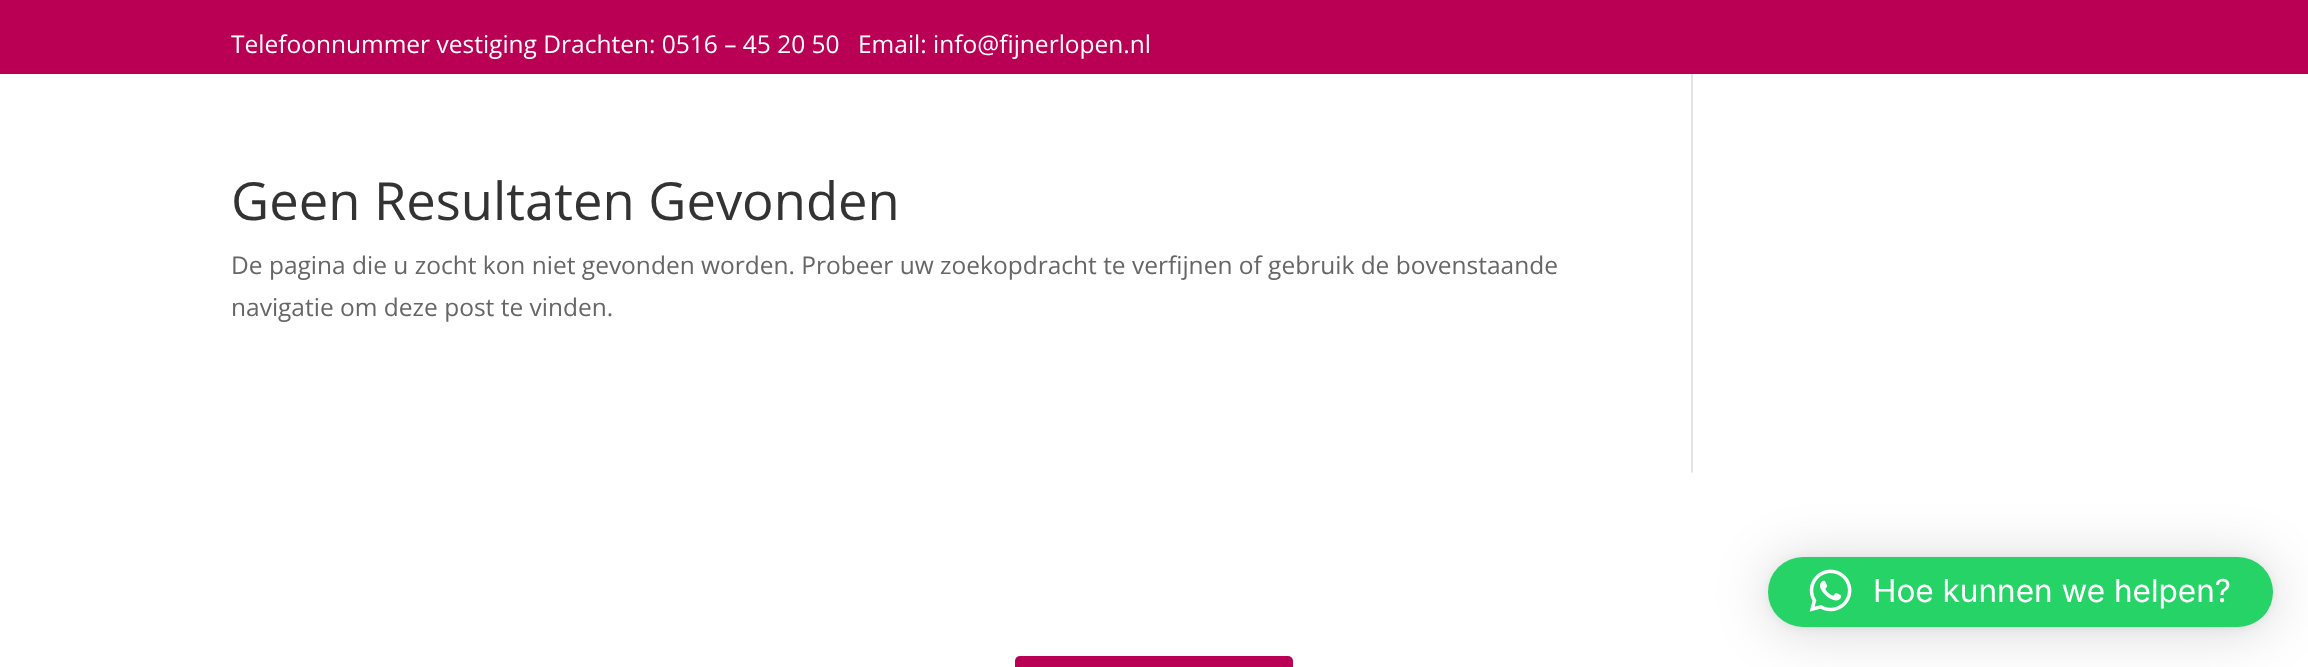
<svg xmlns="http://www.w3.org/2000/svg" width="2308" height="667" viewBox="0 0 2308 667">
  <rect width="100%" height="100%" fill="#fff"/>
  <path d="M0 0h2308v74H0z" fill="#ba0055"/>
  <path d="M1691 74h2v399H1691z" fill="#e2e2e2"/>
  <path d="M1691 472h2v1H1691z" fill="#f1f1f1"/>
  <rect x="1015" y="656" width="278" height="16" rx="5" fill="#ba0055"/>
  <rect x="1768" y="560" width="505" height="70" rx="35" fill="#00000029" filter="blur(28px)"/>
  <rect x="1768" y="558" width="505" height="70" rx="35" fill="#0000000f" filter="blur(5px)"/>
  <rect x="1768" y="557" width="505" height="70" rx="35" fill="#25d366"/>
  <image x="1809" y="569" width="43" height="43" href="img/1.png"/>
  <g font-family="Open Sans" font-size="24.5" fill="#fff">
    <text x="231" y="53">Telefoonnummer vestiging Drachten: 0516 – 45 20 50</text>
    <text x="858" y="53">Email: info@fijnerlopen.nl</text>
  </g>
  <text x="231" y="220" font-family="Open Sans" font-size="52.5" fill="#333">Geen Resultaten Gevonden</text>
  <g font-family="Open Sans" font-size="24.5" fill="#666">
    <text x="231" y="274">De pagina die u zocht kon niet gevonden worden. Probeer uw zoekopdracht te verfijnen of gebruik de bovenstaande</text>
    <text x="231" y="316">navigatie om deze post te vinden.</text>
  </g>
  <text x="1873" y="602" font-family="Inter" font-size="31.5" fill="#fff">Hoe kunnen we helpen?</text>
</svg>
